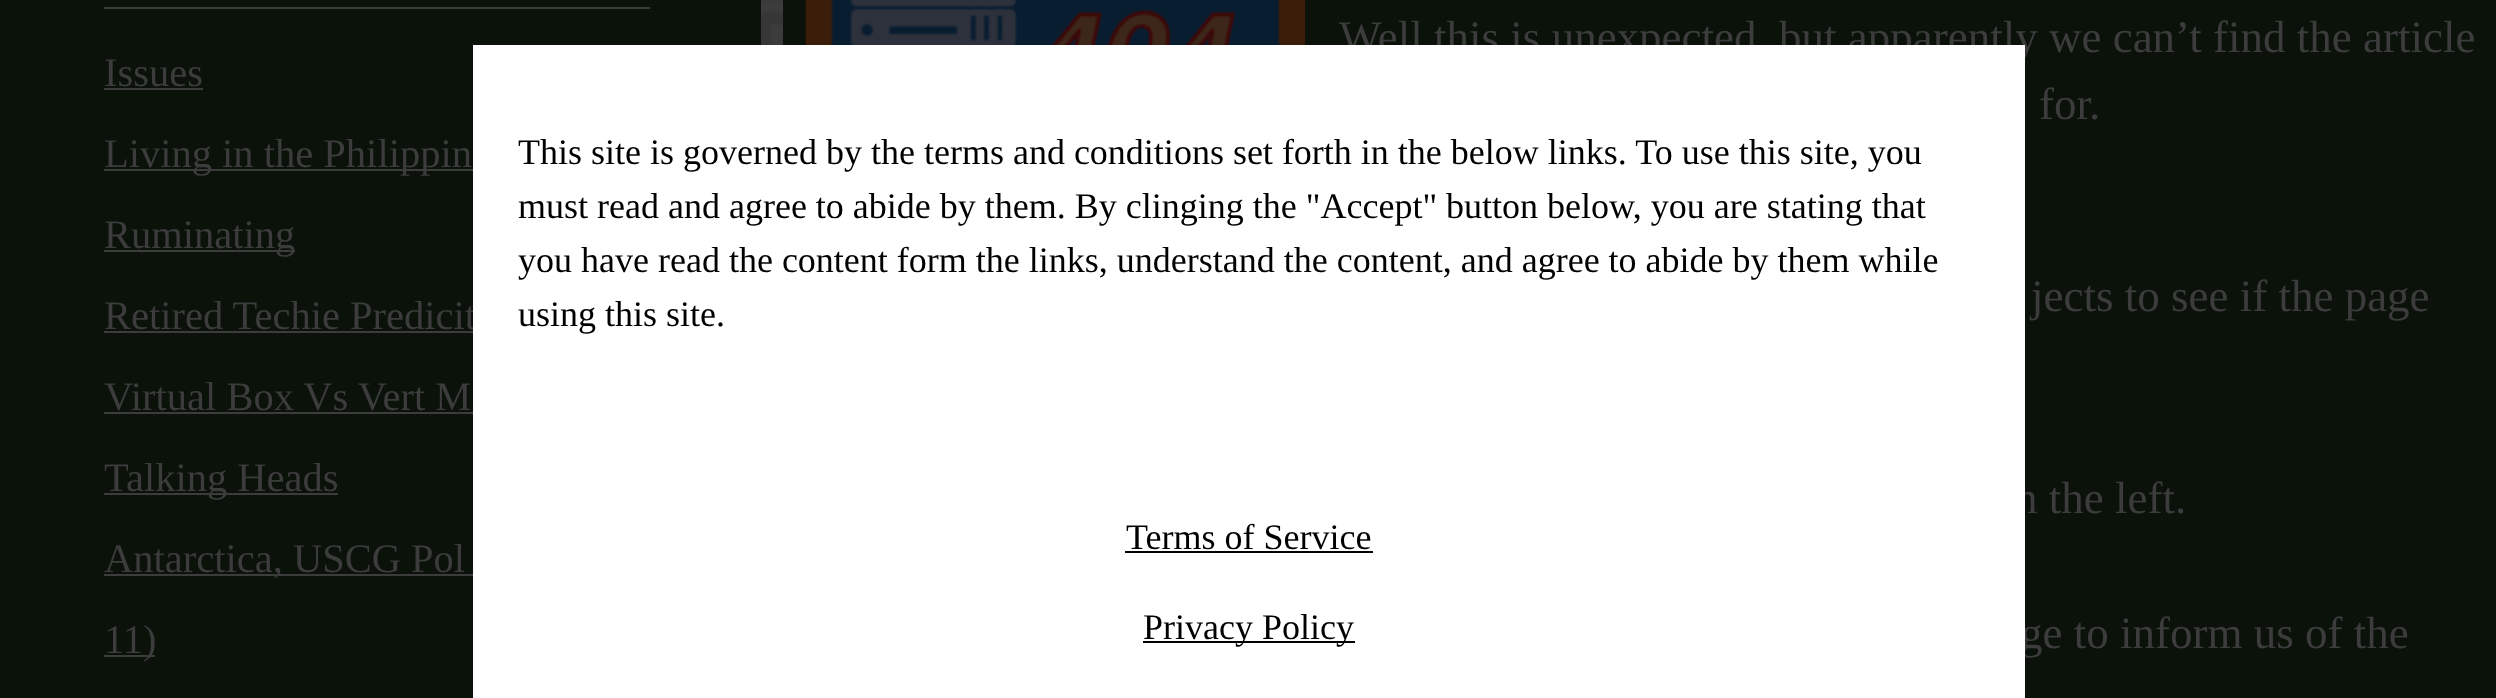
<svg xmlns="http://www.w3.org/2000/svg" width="2496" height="698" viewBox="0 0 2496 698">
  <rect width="100%" height="100%" fill="#fff"/>
  <image x="761" y="0" width="22" height="45" href="img/1.png"/>
  <path d="M0 0h761v698H0z" fill="#0a120a"/>
  <path d="M104 7h546v2H104z" fill="#3c3c3c"/>
  <path d="M104 88h99v2H104z" fill="#3c3c3c"/>
  <path d="M104 169h369v2H104z" fill="#3c3c3c"/>
  <path d="M104 250h191v2H104z" fill="#3c3c3c"/>
  <path d="M104 331h369v2H104z" fill="#3c3c3c"/>
  <path d="M104 412h369v2H104z" fill="#3c3c3c"/>
  <path d="M104 493h234v2H104z" fill="#3c3c3c"/>
  <path d="M104 574h369v2H104z" fill="#3c3c3c"/>
  <path d="M104 655h51v2H104z" fill="#3c3c3c"/>
  <path d="M783 0h1713v698H783z" fill="#0a120a"/>
  <image x="805" y="0" width="500" height="45" href="img/2.png"/>
  <g font-family="Liberation Serif" font-size="40.5" fill="#3c3c3c">
    <text x="104" y="86">Issues</text>
    <text x="104" y="167">Living in the Philippin</text>
    <text x="104" y="248">Ruminating</text>
    <text x="104" y="329">Retired Techie Predicit</text>
    <text x="104" y="410">Virtual Box Vs Vert M</text>
    <text x="104" y="491">Talking Heads</text>
    <text x="104" y="572">Antarctica, USCG Pol</text>
    <text x="104" y="653">11)</text>
  </g>
  <g font-family="Liberation Serif" font-size="45" fill="#3c3c3c">
    <text x="1339" y="52">Well this is unexpected, but apparently we can’t find the article</text>
    <text x="2039" y="119">for.</text>
    <text x="2031" y="311">jects to see if the page</text>
    <text x="2015" y="513">n the left.</text>
    <text x="2020" y="648">ge to inform us of the</text>
  </g>
  <path d="M473 45h1552v653H473z" fill="#fff"/>
  <g font-family="Liberation Serif" font-size="36" fill="#000">
    <text x="518" y="164">This site is governed by the terms and conditions set forth in the below links. To use this site, you</text>
    <text x="518" y="218">must read and agree to abide by them. By clinging the "Accept" button below, you are stating that</text>
    <text x="518" y="272">you have read the content form the links, understand the content, and agree to abide by them while</text>
    <text x="518" y="326">using this site.</text>
    <text x="1126" y="549">Terms of Service</text>
  </g>
  <path d="M1125 551h248v2H1125z" fill="#000"/>
  <path d="M1143 641h212v2H1143z" fill="#000"/>
  <text x="1143" y="639" font-family="Liberation Serif" font-size="36" fill="#000">Privacy Policy</text>
</svg>
